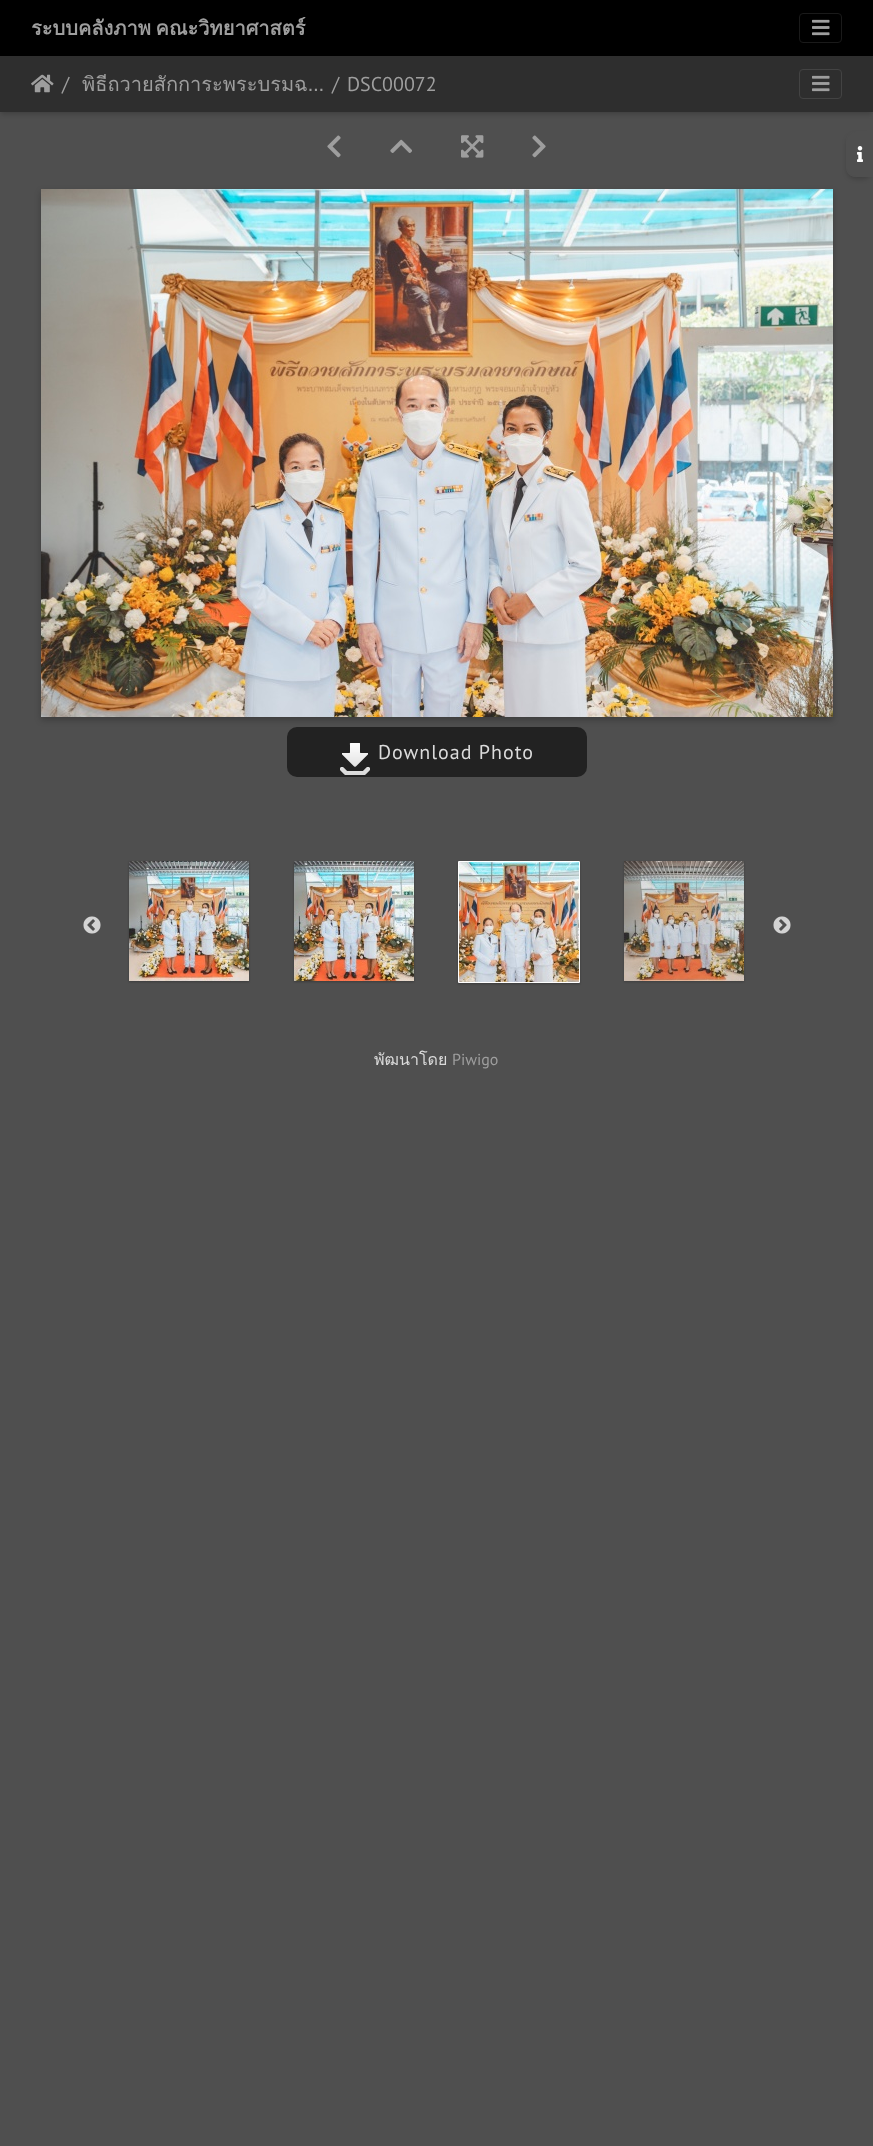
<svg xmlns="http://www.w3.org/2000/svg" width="873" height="2146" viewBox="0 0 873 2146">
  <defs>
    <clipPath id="clip1"><path d="M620 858H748V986H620ZM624 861H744V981H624Z" clip-rule="evenodd"/></clipPath>
  </defs>
  <rect width="100%" height="100%" fill="#4f4f4f"/>
  <path d="M1 60h871v54H1z" fill="#00000033" filter="blur(2.5px)"/>
  <path d="M0 0h873v56H0z" fill="#000"/>
  <rect x="799.5" y="13.5" width="42" height="29" rx="3.5" fill="none" stroke="#1a1a1a"/>
  <image x="812" y="19" width="18" height="17" href="img/1.png"/>
  <path d="M0 56h873v56H0z" fill="#2e2e2e"/>
  <image x="31" y="74" width="23" height="19" href="img/2.png"/>
  <rect x="799.5" y="69.5" width="42" height="29" rx="3.5" fill="none" stroke="#434343"/>
  <image x="812" y="75" width="18" height="17" href="img/3.png"/>
  <image x="327" y="135" width="14" height="23" href="img/4.png"/>
  <image x="390" y="139" width="22" height="14" href="img/5.png"/>
  <image x="461" y="135" width="23" height="23" href="img/6.png"/>
  <image x="532" y="135" width="14" height="23" href="img/7.png"/>
  <rect x="847" y="135" width="25" height="44" rx="9" fill="#00000033" filter="blur(2.5px)"/>
  <path d="M856 131H873V177H856C850.5 177 846 172.5 846 167V141C846 135.5 850.5 131 856 131Z" fill="#4f4f4f"/>
  <path d="M856 131H873V177H856C850 177 846 173 846 167V141C846 135 850 131 856 131ZM856 132H873V176H856C851 176 847 172 847 167V141C847 136 851 132 856 132Z" fill="#4f4f4f" fill-rule="evenodd"/>
  <image x="857" y="146" width="6" height="16" href="img/8.png"/>
  <rect x="287" y="727" width="300" height="50" rx="10" fill="#222"/>
  <path d="M41 192h792v528H41z" fill="#0000003b" filter="blur(3px)"/>
  <image x="41" y="189" width="792" height="528" href="img/9.png"/>
  <image x="340" y="743" width="30" height="32" href="img/10.png"/>
  <image x="83" y="916" width="18" height="18" href="img/11.png"/>
  <path d="M129 862h120v120H129z" fill="#0000003d" filter="blur(1px)"/>
  <image x="129" y="861" width="120" height="120" href="img/12.png"/>
  <path d="M294 862h120v120H294z" fill="#0000003d" filter="blur(1px)"/>
  <image x="294" y="861" width="120" height="120" href="img/13.png"/>
  <path d="M458 862h122v122H458z" fill="#0000003d" filter="blur(1px)"/>
  <path d="M458.5 861.5h121v121H458.5z" fill="none" stroke="#fff"/>
  <image x="459" y="862" width="120" height="120" href="img/14.png"/>
  <g clip-path="url(#clip1)">
    <path d="M624 862h120v120H624z" fill="#0c0c0c3d" filter="blur(1px)"/>
  </g>
  <image x="624" y="861" width="120" height="120" href="img/15.png"/>
  <image x="773" y="916" width="18" height="18" href="img/16.png"/>
  <text x="31" y="35" word-spacing="-2" font-family="Loma" font-size="20" font-weight="bold" fill="#9e9e9e">ระบบคลังภาพ คณะวิทยาศาสตร์</text>
  <text x="62" y="91" font-family="PT Sans" font-size="20" fill="#9e9e9e">/</text>
  <text x="82" y="91" font-family="Loma" font-size="20" fill="#9e9e9e">พิธีถวายสักการะพระบรมฉ…</text>
  <g font-family="PT Sans" font-size="20" fill="#9e9e9e">
    <text x="332" y="91">/</text>
    <text x="347" y="91">DSC00072</text>
  </g>
  <text x="378" y="759" font-family="PT Sans" font-size="20" letter-spacing="1" fill="#dbdbdb">Download Photo</text>
  <text x="374" y="1065" font-family="Loma" font-size="16" fill="#dbdbdb">พัฒนาโดย</text>
  <text x="452" y="1065" font-family="PT Sans" font-size="16" fill="#9e9e9e">Piwigo</text>
</svg>
